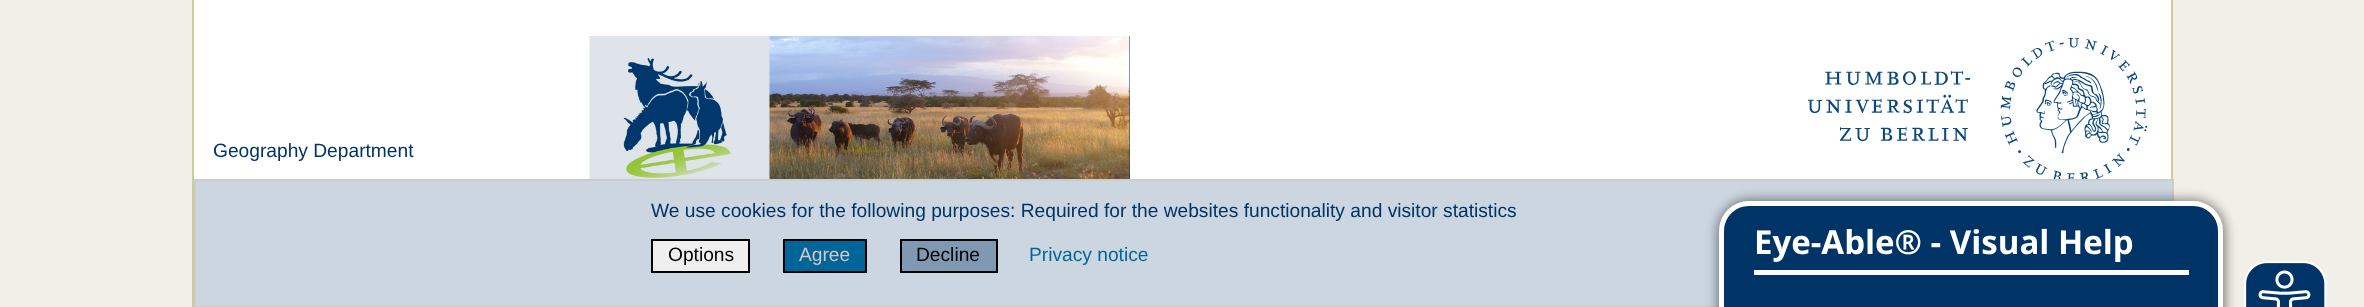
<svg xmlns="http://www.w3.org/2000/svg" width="2364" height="307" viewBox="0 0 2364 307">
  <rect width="100%" height="100%" fill="#f0f0e8"/>
  <path d="M194 0h1977v179H194z" fill="#fff"/>
  <path d="M2171 0h2v179H2171z" fill="#cc9"/>
  <path d="M192 0h2v307H192z" fill="#cc9"/>
  <path d="M1129 36h1v143H1129z" fill="#036"/>
  <image x="589" y="36" width="541" height="143" href="img/1.png"/>
  <image x="1808" y="38" width="340" height="141" href="img/2.png"/>
  <path d="M195 180h1978v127H195z" fill="#ccd6e0" stroke="#ccc" stroke-width="2"/>
  <path d="M652 240h97v32H652z" fill="#efefef" stroke="#000" stroke-width="2"/>
  <path d="M784 240h82v32H784z" fill="#069" stroke="#000" stroke-width="2"/>
  <path d="M901 240h96v32H901z" fill="#8099b2" stroke="#000" stroke-width="2"/>
  <rect x="1718" y="200" width="507" height="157" rx="32" fill="#00000080" filter="blur(6px)"/>
  <rect x="1721.5" y="203.5" width="499" height="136" rx="27.5" fill="#036" stroke="#fff" stroke-width="5"/>
  <path d="M1754 270h435v5H1754z" fill="#fff"/>
  <image x="2244" y="261" width="83" height="46" href="img/3.png"/>
  <g font-family="Liberation Sans" font-size="19.2" fill="#036">
    <text x="213" y="157">Geography Department</text>
    <text x="651" y="217">We use cookies for the following purposes: Required for the websites functionality and visitor statistics</text>
  </g>
  <text x="668" y="261" font-family="Liberation Sans" font-size="19.2" fill="#000">Options</text>
  <text x="799" y="261" font-family="Liberation Sans" font-size="19.2" fill="#d5c7c7">Agree</text>
  <text x="916" y="261" font-family="Liberation Sans" font-size="19.2" fill="#000">Decline</text>
  <text x="1029" y="261" font-family="Liberation Sans" font-size="19.2" fill="#069">Privacy notice</text>
  <text x="1754" y="254" font-family="Open Sans" font-size="33" font-weight="bold" fill="#fff">Eye-Able® - Visual Help</text>
</svg>
